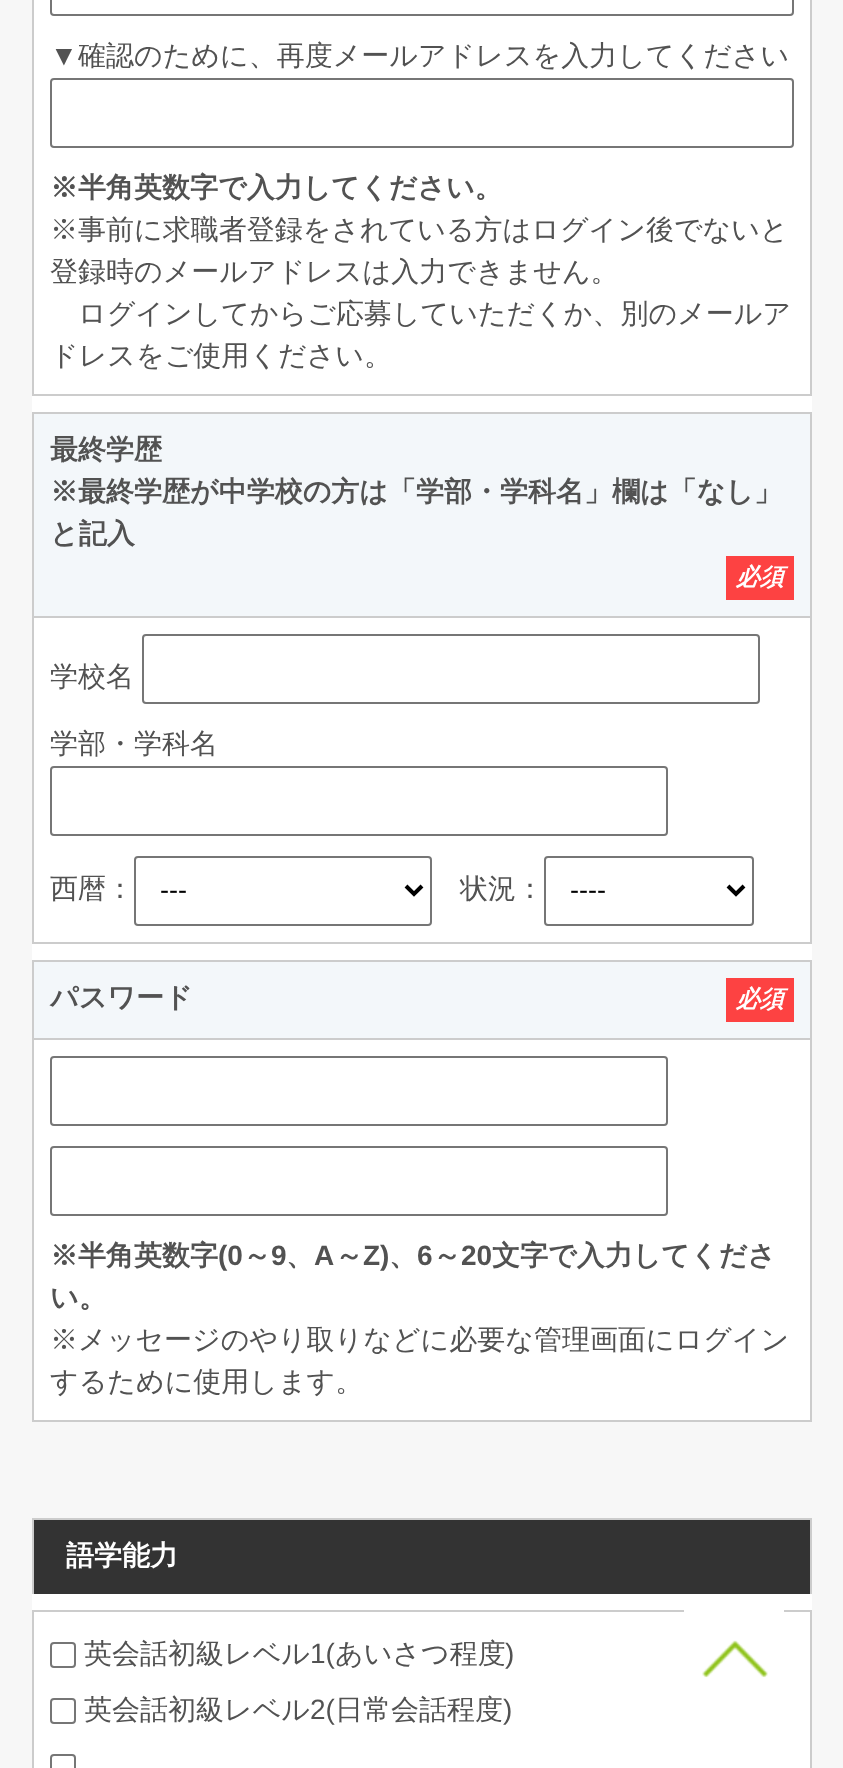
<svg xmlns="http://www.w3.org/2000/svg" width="843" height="1768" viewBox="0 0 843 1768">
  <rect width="100%" height="100%" fill="#f7f7f7"/>
  <path d="M32 0h780v1420H32z" fill="#fff"/>
  <path d="M33 -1h778v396H33z" fill="none" stroke="#ccc" stroke-width="2"/>
  <rect x="51" y="-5" width="742" height="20" rx="3" fill="none" stroke="#767676" stroke-width="2"/>
  <rect x="51" y="79" width="742" height="68" rx="3" fill="none" stroke="#767676" stroke-width="2"/>
  <path d="M34 414h776v202H34z" fill="#f3f7fa"/>
  <path d="M32 412h780v2H32z" fill="#ccc"/>
  <path d="M810 412h2v204H810z" fill="#ccc"/>
  <path d="M32 412h2v204H32z" fill="#ccc"/>
  <path d="M726 556h68v44H726z" fill="#fd4242"/>
  <path d="M33 617h778v326H33z" fill="none" stroke="#ccc" stroke-width="2"/>
  <rect x="143" y="635" width="616" height="68" rx="3" fill="none" stroke="#767676" stroke-width="2"/>
  <rect x="51" y="767" width="616" height="68" rx="3" fill="none" stroke="#767676" stroke-width="2"/>
  <rect x="135" y="857" width="296" height="68" rx="3" fill="none" stroke="#767676" stroke-width="2"/>
  <path d="M406 886L414 894L422 886" fill="none" stroke="#000" stroke-width="4"/>
  <rect x="545" y="857" width="208" height="68" rx="3" fill="none" stroke="#767676" stroke-width="2"/>
  <path d="M728 886L736 894L744 886" fill="none" stroke="#000" stroke-width="4"/>
  <path d="M34 962h776v76H34z" fill="#f3f7fa"/>
  <path d="M32 960h780v2H32z" fill="#ccc"/>
  <path d="M810 960h2v78H810z" fill="#ccc"/>
  <path d="M32 960h2v78H32z" fill="#ccc"/>
  <path d="M726 978h68v44H726z" fill="#fd4242"/>
  <path d="M33 1039h778v382H33z" fill="none" stroke="#ccc" stroke-width="2"/>
  <rect x="51" y="1057" width="616" height="68" rx="3" fill="none" stroke="#767676" stroke-width="2"/>
  <rect x="51" y="1147" width="616" height="68" rx="3" fill="none" stroke="#767676" stroke-width="2"/>
  <path d="M32 1594h780v174H32z" fill="#fff"/>
  <path d="M34 1520h776v74H34z" fill="#333"/>
  <path d="M32 1518h780v2H32z" fill="#ccc"/>
  <path d="M810 1518h2v76H810z" fill="#ccc"/>
  <path d="M32 1518h2v76H32z" fill="#ccc"/>
  <path d="M33 1611h778v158H33z" fill="none" stroke="#ccc" stroke-width="2"/>
  <rect x="51" y="1643" width="24" height="24" rx="3" fill="none" stroke="#767676" stroke-width="2"/>
  <rect x="51" y="1699" width="24" height="24" rx="3" fill="none" stroke="#767676" stroke-width="2"/>
  <rect x="51" y="1755" width="24" height="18" rx="3" fill="none" stroke="#767676" stroke-width="2"/>
  <path d="M684 1610h100v2H684z" fill="#ffffffe6"/>
  <image x="702" y="1640" width="66" height="37" href="img/1.png"/>
  <path d="M684 1610h100v67H684z" fill="#ffffffe6"/>
  <image x="702" y="1640" width="66" height="38" href="img/2.png"/>
  <text x="50" y="65" font-family="Liberation Sans" font-size="28" fill="#525252">▼</text>
  <text x="78" y="65" font-family="WenQuanYi Zen Hei" font-size="28" font-weight="500" fill="#525252">確認のために、再度メールアドレスを入力してください</text>
  <text x="50" y="197" font-family="WenQuanYi Zen Hei" font-size="28" font-weight="bold" fill="#525252">※半角英数字で入力してください。</text>
  <g font-family="WenQuanYi Zen Hei" font-size="28" font-weight="500" fill="#525252">
    <text x="50" y="239">※事前に求職者登録をされている方はログイン後でないと</text>
    <text x="50" y="281">登録時のメールアドレスは入力できません。</text>
    <text x="78" y="323">ログインしてからご応募していただくか、別のメールア</text>
    <text x="50" y="365">ドレスをご使用ください。</text>
  </g>
  <g font-family="WenQuanYi Zen Hei" font-size="28" font-weight="bold" fill="#525252">
    <text x="50" y="459">最終学歴</text>
    <text x="50" y="501">※最終学歴が中学校の方は「学部・学科名」欄は「なし」</text>
    <text x="50" y="543">と記入</text>
  </g>
  <text x="736" y="585" font-family="WenQuanYi Zen Hei" font-size="24" font-weight="bold" font-style="italic" fill="#fff">必須</text>
  <g font-family="WenQuanYi Zen Hei" font-size="28" font-weight="500" fill="#525252">
    <text x="50" y="686">学校名</text>
    <text x="50" y="753">学部・学科名</text>
    <text x="50" y="898">西暦：</text>
  </g>
  <text x="160" y="899" font-family="Liberation Sans" font-size="27" fill="#000">---</text>
  <text x="460" y="898" font-family="WenQuanYi Zen Hei" font-size="28" font-weight="500" fill="#525252">状況：</text>
  <text x="570" y="899" font-family="Liberation Sans" font-size="27" fill="#000">----</text>
  <text x="50" y="1007" font-family="WenQuanYi Zen Hei" font-size="28" font-weight="bold" fill="#525252">パスワード</text>
  <text x="736" y="1007" font-family="WenQuanYi Zen Hei" font-size="24" font-weight="bold" font-style="italic" fill="#fff">必須</text>
  <text x="50" y="1265" font-family="WenQuanYi Zen Hei" font-size="28" font-weight="bold" fill="#525252">※半角英数字</text>
  <text x="218" y="1265" font-family="Liberation Sans" font-size="28" font-weight="bold" fill="#525252">(0</text>
  <text x="243" y="1265" font-family="WenQuanYi Zen Hei" font-size="28" font-weight="bold" fill="#525252">～</text>
  <g font-family="Liberation Sans" font-size="28" font-weight="bold" fill="#525252">
    <text x="271" y="1265">9</text>
    <text x="314" y="1265">A</text>
  </g>
  <text x="335" y="1265" font-family="WenQuanYi Zen Hei" font-size="28" font-weight="bold" fill="#525252">～</text>
  <g font-family="Liberation Sans" font-size="28" font-weight="bold" fill="#525252">
    <text x="363" y="1265">Z)</text>
    <text x="417" y="1265">6</text>
  </g>
  <text x="433" y="1265" font-family="WenQuanYi Zen Hei" font-size="28" font-weight="bold" fill="#525252">～</text>
  <text x="461" y="1265" font-family="Liberation Sans" font-size="28" font-weight="bold" fill="#525252">20</text>
  <g font-family="WenQuanYi Zen Hei" font-size="28" font-weight="bold" fill="#525252">
    <text x="492" y="1265">文字で入力してくださ</text>
    <text x="286" y="1265">、</text>
    <text x="389" y="1265">、</text>
    <text x="50" y="1307">い。</text>
  </g>
  <g font-family="WenQuanYi Zen Hei" font-size="28" font-weight="500" fill="#525252">
    <text x="50" y="1349">※メッセージのやり取りなどに必要な管理画面にログイン</text>
    <text x="50" y="1391">するために使用します。</text>
  </g>
  <text x="66" y="1565" font-family="WenQuanYi Zen Hei" font-size="28" font-weight="bold" fill="#fff">語学能力</text>
  <text x="84" y="1663" font-family="WenQuanYi Zen Hei" font-size="28" font-weight="500" fill="#525252">英会話初級レベル</text>
  <text x="310" y="1663" font-family="Liberation Sans" font-size="28" fill="#525252">1(</text>
  <text x="335" y="1663" font-family="WenQuanYi Zen Hei" font-size="28" font-weight="500" fill="#525252">あいさつ程度</text>
  <text x="505" y="1663" font-family="Liberation Sans" font-size="28" fill="#525252">)</text>
  <text x="84" y="1719" font-family="WenQuanYi Zen Hei" font-size="28" font-weight="500" fill="#525252">英会話初級レベル</text>
  <text x="310" y="1719" font-family="Liberation Sans" font-size="28" fill="#525252">2(</text>
  <text x="335" y="1719" font-family="WenQuanYi Zen Hei" font-size="28" font-weight="500" fill="#525252">日常会話程度</text>
  <text x="503" y="1719" font-family="Liberation Sans" font-size="28" fill="#525252">)</text>
</svg>
